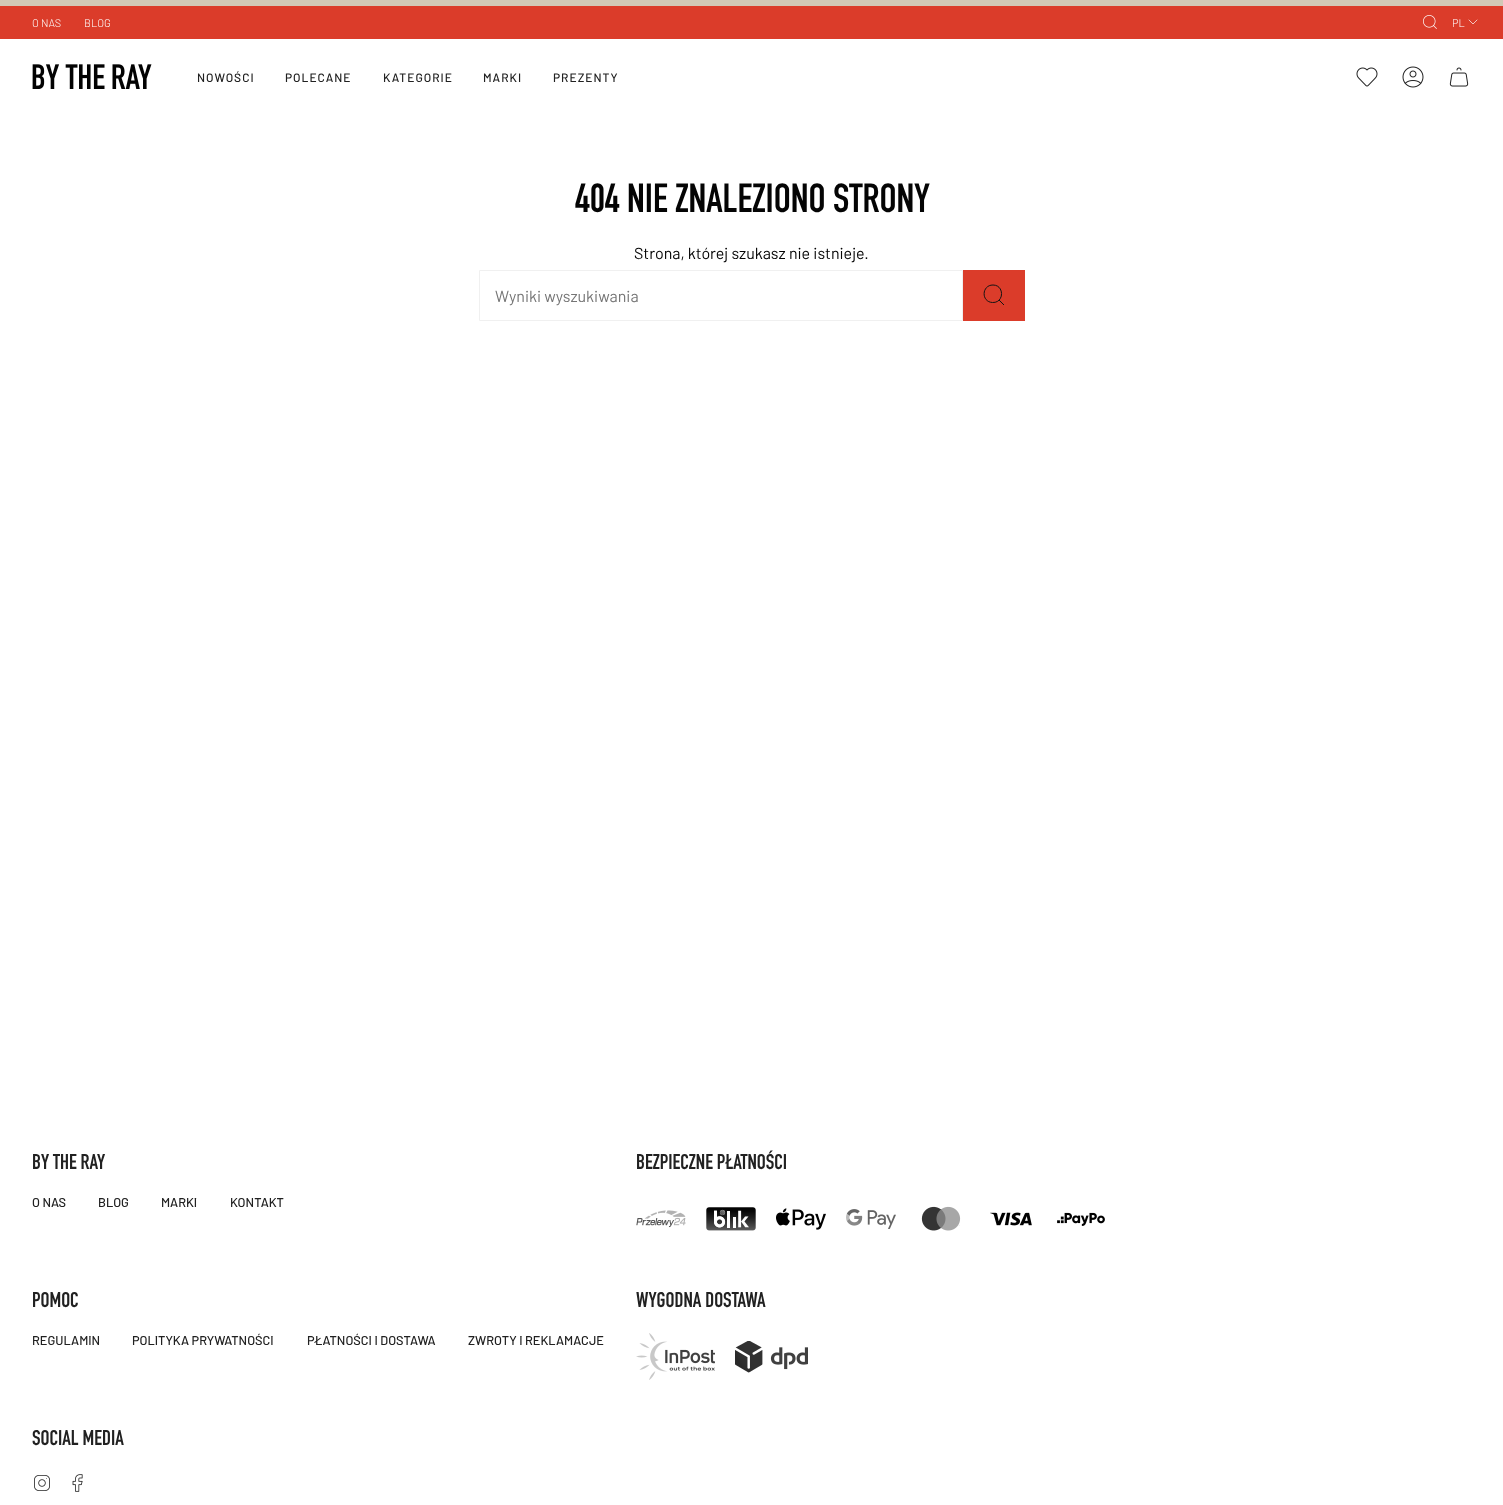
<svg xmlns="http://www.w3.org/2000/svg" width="1503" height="1505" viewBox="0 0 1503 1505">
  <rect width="100%" height="100%" fill="#fff"/>
  <path d="M0 0h1503v6H0z" fill="#d2c8b6"/>
  <path d="M0 6h1503v33H0z" fill="#db3c2a"/>
  <image x="1423" y="15" width="14" height="14" href="img/1.png"/>
  <path d="M1469 20L1473 24L1477 20" fill="none" stroke="#fff" stroke-width="0.7" stroke-linecap="round" stroke-linejoin="round"/>
  <image x="32" y="64" width="120" height="25" href="img/2.png"/>
  <image x="1356" y="67" width="22" height="20" href="img/3.png"/>
  <image x="1402" y="66" width="22" height="22" href="img/4.png"/>
  <image x="1449" y="67" width="20" height="20" href="img/5.png"/>
  <path d="M479.5 270.5h483v50H479.5z" fill="none" stroke="#f0f0f0"/>
  <path d="M963 270h62v51H963z" fill="#db3c2a"/>
  <path d="M993 285C1004.5 285 1004.5 303 992.5 302.5C981 302 981.5 285 993 285ZM999 300L1004 305" fill="none" stroke="#141414"/>
  <image x="636" y="1210" width="50" height="18" href="img/6.png"/>
  <image x="706" y="1207" width="50" height="24" href="img/7.png"/>
  <image x="776" y="1208" width="50" height="22" href="img/8.png"/>
  <image x="846" y="1209" width="50" height="20" href="img/9.png"/>
  <image x="921" y="1206" width="40" height="25" href="img/10.png"/>
  <image x="990" y="1212" width="42" height="14" href="img/11.png"/>
  <image x="1057" y="1212" width="48" height="14" href="img/12.png"/>
  <image x="636" y="1333" width="79" height="47" href="img/13.png"/>
  <image x="735" y="1341" width="73" height="32" href="img/14.png"/>
  <image x="34" y="1475" width="16" height="16" href="img/15.png"/>
  <image x="72" y="1474" width="11" height="18" href="img/16.png"/>
  <g font-family="Barlow" font-size="11" font-weight="300" fill="#fff">
    <text x="32" y="27">O NAS</text>
    <text x="84" y="27">BLOG</text>
    <text x="1452" y="27">PL</text>
  </g>
  <g font-family="Barlow" font-size="12" font-weight="500" letter-spacing="1" fill="#212121">
    <text x="197" y="82">NOWOŚCI</text>
    <text x="285" y="82">POLECANE</text>
    <text x="383" y="82">KATEGORIE</text>
    <text x="483" y="82">MARKI</text>
    <text x="553" y="82">PREZENTY</text>
  </g>
  <text x="575" y="212" font-family="'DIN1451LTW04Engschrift'" font-size="40" fill="#040404">404 NIE ZNALEZIONO STRONY</text>
  <text x="634" y="259" font-family="Barlow" font-size="16" fill="#040404">Strona, której szukasz nie istnieje.</text>
  <text x="495" y="302" font-family="Barlow" font-size="16" fill="#757575">Wyniki wyszukiwania</text>
  <text x="32" y="1169" font-family="'DIN1451LTW04Engschrift'" font-size="21" fill="#212121">BY THE RAY</text>
  <g font-family="Barlow" font-size="12.75" font-weight="500" fill="#212121">
    <text x="32" y="1207">O NAS</text>
    <text x="98" y="1207">BLOG</text>
    <text x="161" y="1207">MARKI</text>
    <text x="230" y="1207">KONTAKT</text>
  </g>
  <g font-family="'DIN1451LTW04Engschrift'" font-size="21" fill="#212121">
    <text x="636" y="1169">BEZPIECZNE PŁATNOŚCI</text>
    <text x="32" y="1307">POMOC</text>
  </g>
  <g font-family="Barlow" font-size="12.75" font-weight="500" fill="#212121">
    <text x="32" y="1345">REGULAMIN</text>
    <text x="132" y="1345">POLITYKA PRYWATNOŚCI</text>
    <text x="307" y="1345">PŁATNOŚCI I DOSTAWA</text>
    <text x="468" y="1345">ZWROTY I REKLAMACJE</text>
  </g>
  <g font-family="'DIN1451LTW04Engschrift'" font-size="21" fill="#212121">
    <text x="636" y="1307">WYGODNA DOSTAWA</text>
    <text x="32" y="1445">SOCIAL MEDIA</text>
  </g>
</svg>
